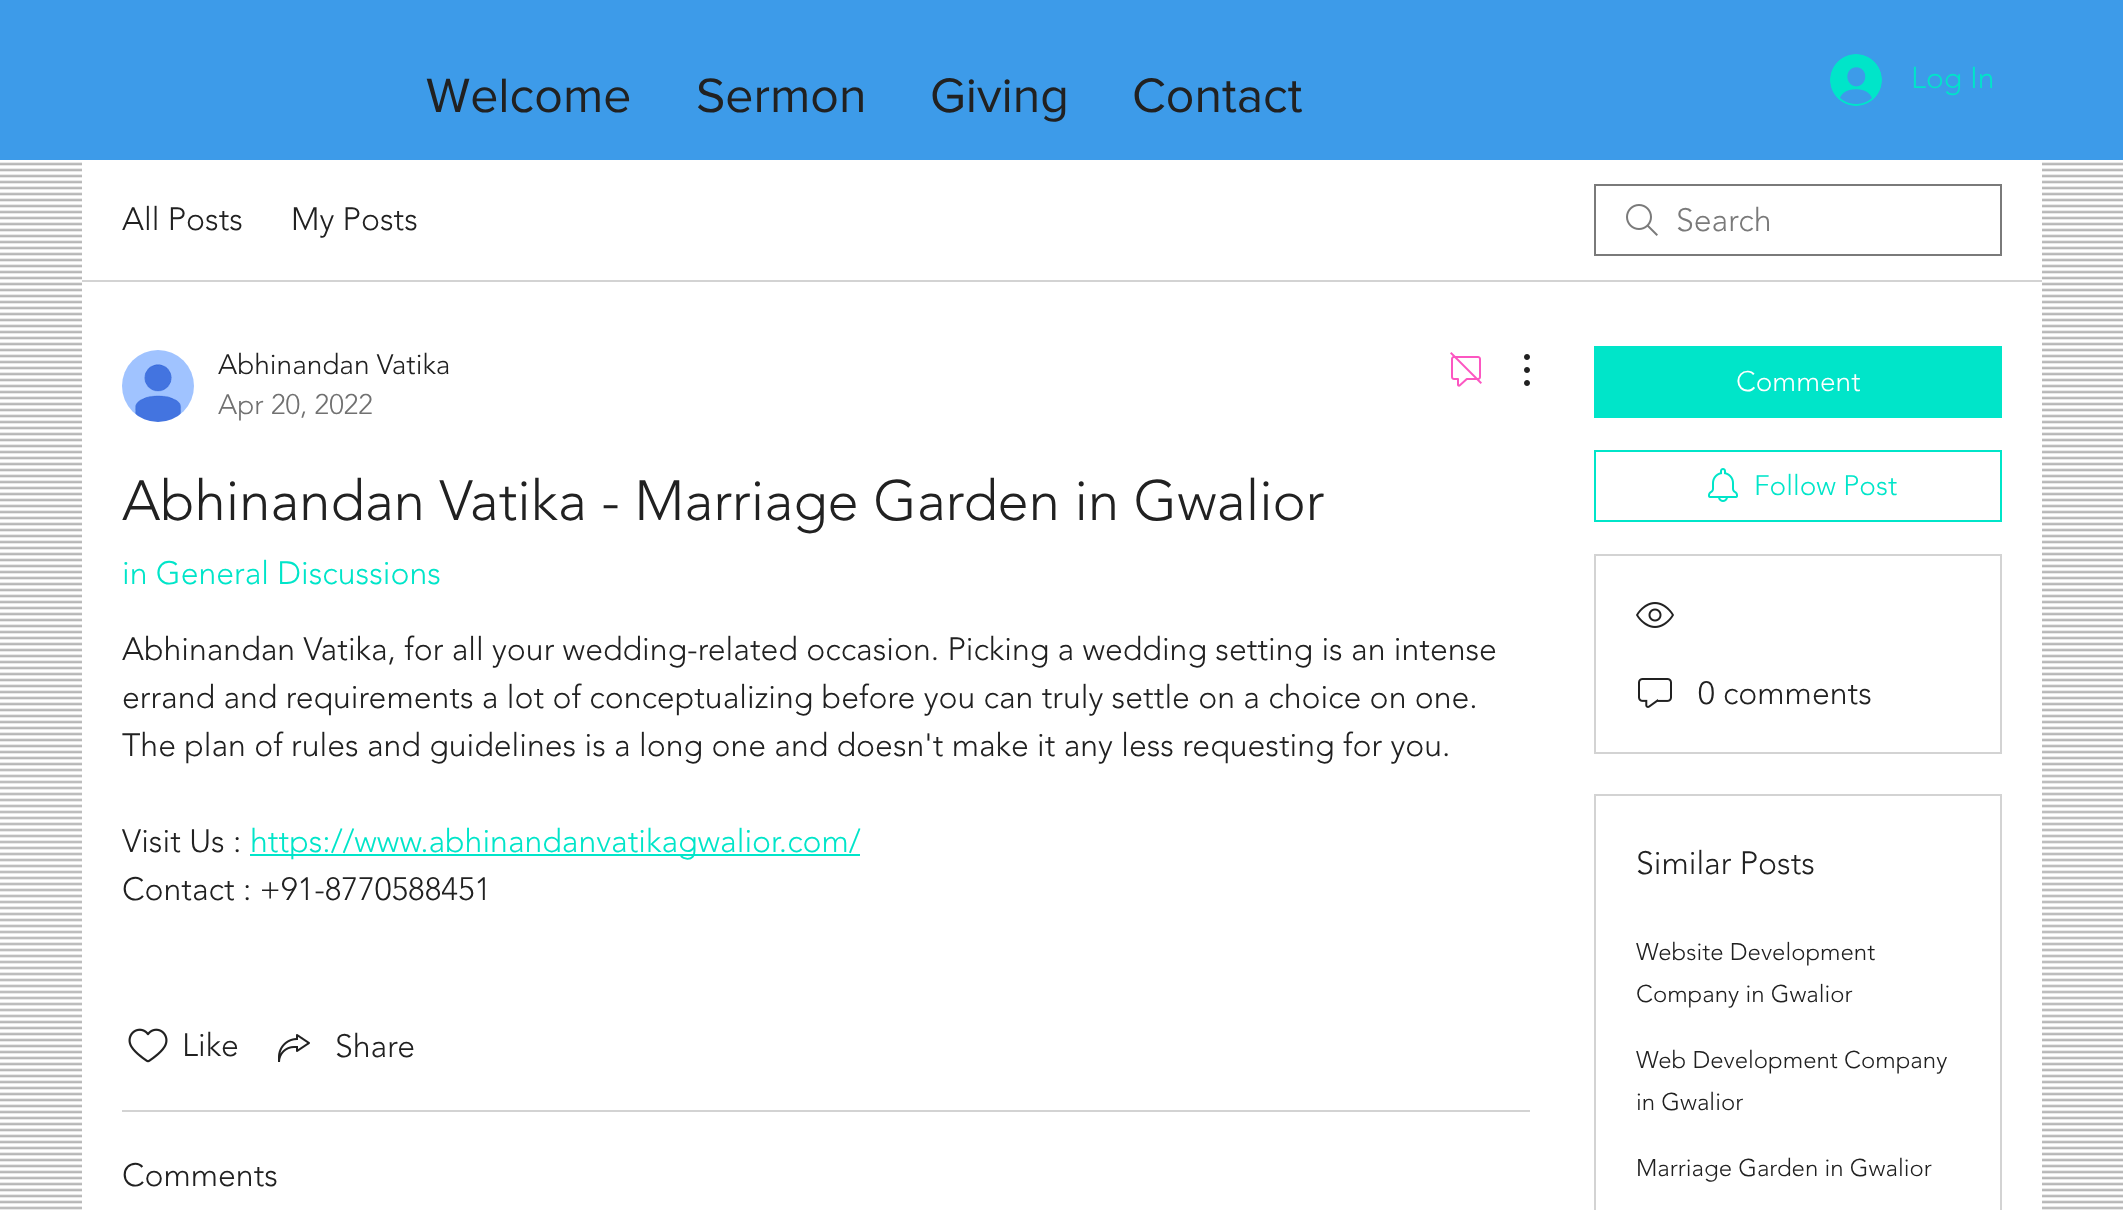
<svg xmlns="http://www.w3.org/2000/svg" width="2123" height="1210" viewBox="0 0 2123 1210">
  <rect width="100%" height="100%" fill="#fff"/>
  <path d="M0 0h2123v160H0z" fill="#3d9be9"/>
  <image x="1830" y="54" width="52" height="52" href="img/1.png"/>
  <image x="0" y="162" width="2123" height="1048" href="img/11.png"/>
  <path d="M82 162h1960v1048H82z" fill="#fff"/>
  <path d="M82 280h1960v2H82z" fill="#d3d3d3"/>
  <image x="1626" y="204" width="32" height="32" href="img/2.png"/>
  <path d="M1595 185h406v70H1595z" fill="none" stroke="#7a7a7a" stroke-width="2"/>
  <image x="122" y="350" width="72" height="72" href="img/3.png"/>
  <image x="1450" y="352" width="32" height="35" href="img/4.png"/>
  <image x="1524" y="354" width="6" height="32" href="img/5.png"/>
  <path d="M250 854h610v2H250z" fill="#00e5c9"/>
  <image x="128" y="1028" width="40" height="35" href="img/6.png"/>
  <image x="278" y="1034" width="32" height="28" href="img/7.png"/>
  <path d="M122 1110h1408v2H122z" fill="#d3d3d3"/>
  <path d="M1594 346h408v72H1594z" fill="#00e5c9"/>
  <path d="M1595 451h406v70H1595z" fill="none" stroke="#00e5c9" stroke-width="2"/>
  <image x="1708" y="468" width="30" height="34" href="img/8.png"/>
  <path d="M1595 555h406v198H1595z" fill="none" stroke="#d3d3d3" stroke-width="2"/>
  <image x="1636" y="602" width="38" height="26" href="img/9.png"/>
  <image x="1638" y="678" width="34" height="30" href="img/10.png"/>
  <path d="M1595 795h406v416H1595z" fill="none" stroke="#d3d3d3" stroke-width="2"/>
  <g font-family="'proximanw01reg'" font-size="50" fill="#212121">
    <text x="426" y="112">Welcome</text>
    <text x="696" y="112">Sermon</text>
    <text x="930" y="112">Giving</text>
    <text x="1132" y="112">Contact</text>
  </g>
  <text x="1911" y="88" font-family="'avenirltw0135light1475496'" font-size="30" font-weight="300" fill="#00e5c9">Log In</text>
  <g font-family="'avenirltw0135light1475496'" font-size="32" font-weight="300" fill="#212121">
    <text x="122" y="230">All Posts</text>
    <text x="291" y="230">My Posts</text>
  </g>
  <text x="1676" y="231" font-family="'avenirltw0135light1475496'" font-size="32" font-weight="300" fill="#7a7a7a">Search</text>
  <text x="218" y="374" font-family="'avenirltw0135light1475496'" font-size="28" font-weight="300" fill="#212121">Abhinandan Vatika</text>
  <text x="218" y="414" font-family="'avenirltw0135light1475496'" font-size="28" font-weight="300" fill="#717171">Apr 20, 2022</text>
  <text x="122" y="520" font-family="'avenirltw0135light1475496'" font-size="56" font-weight="300" fill="#212121">Abhinandan Vatika - Marriage Garden in Gwalior</text>
  <text x="122" y="584" font-family="'avenirltw0135light1475496'" font-size="32" font-weight="300" fill="#00e5c9">in General Discussions</text>
  <g font-family="'avenirltw0135light1475496'" font-size="32" font-weight="300" fill="#212121">
    <text x="122" y="660">Abhinandan Vatika, for all your wedding-related occasion. Picking a wedding setting is an intense</text>
    <text x="122" y="708">errand and requirements a lot of conceptualizing before you can truly settle on a choice on one.</text>
    <text x="122" y="756">The plan of rules and guidelines is a long one and doesn't make it any less requesting for you.</text>
    <text x="122" y="852">Visit Us :</text>
  </g>
  <text x="250" y="852" font-family="'avenirltw0135light1475496'" font-size="32" font-weight="300" fill="#00e5c9">https://www.abhinandanvatikagwalior.com/</text>
  <g font-family="'avenirltw0135light1475496'" font-size="32" font-weight="300" fill="#212121">
    <text x="122" y="900">Contact : +91-8770588451</text>
    <text x="182" y="1056">Like</text>
    <text x="335" y="1057">Share</text>
    <text x="122" y="1186">Comments</text>
  </g>
  <text x="1736" y="391" font-family="'avenirltw0135light1475496'" font-size="28" font-weight="300" fill="#fff">Comment</text>
  <text x="1754" y="495" font-family="'avenirltw0135light1475496'" font-size="28" font-weight="300" fill="#00e5c9">Follow Post</text>
  <g font-family="'avenirltw0135light1475496'" font-size="32" font-weight="300" fill="#212121">
    <text x="1698" y="704">0 comments</text>
    <text x="1636" y="874">Similar Posts</text>
  </g>
  <g font-family="'avenirltw0135light1475496'" font-size="24" font-weight="300" fill="#212121">
    <text x="1636" y="960">Website Development</text>
    <text x="1636" y="1002">Company in Gwalior</text>
    <text x="1636" y="1068">Web Development Company</text>
    <text x="1636" y="1110">in Gwalior</text>
    <text x="1636" y="1176">Marriage Garden in Gwalior</text>
  </g>
</svg>
